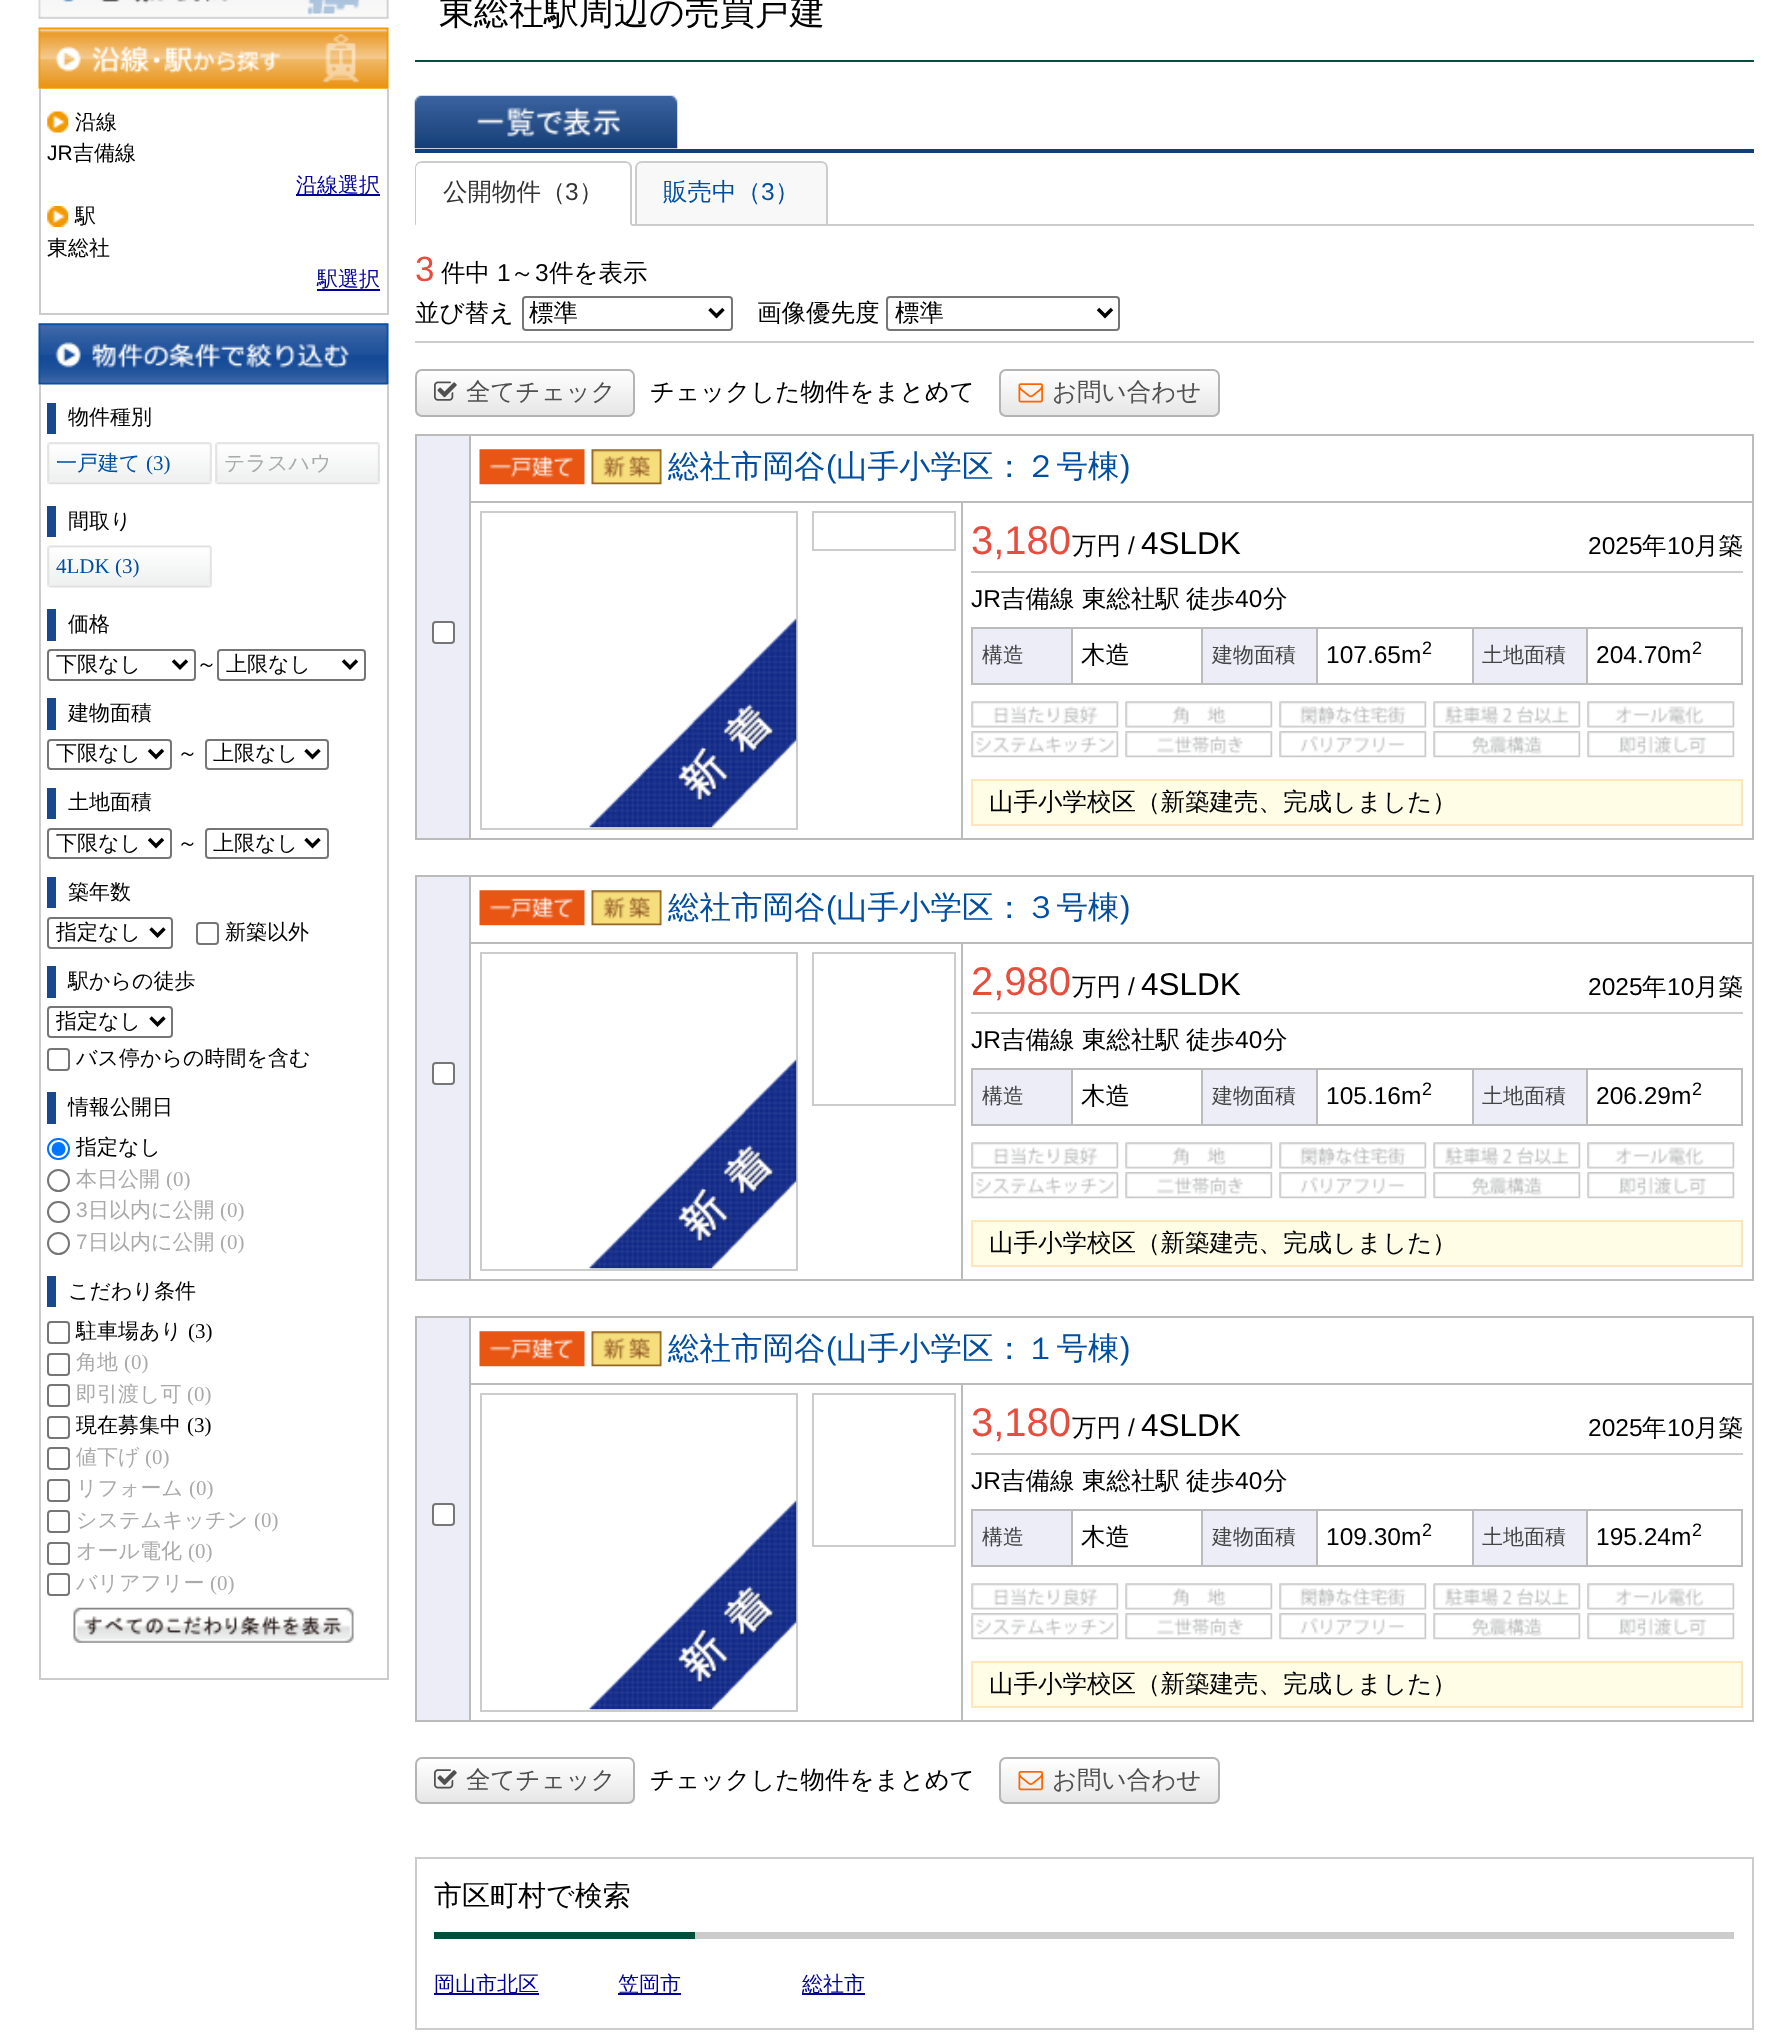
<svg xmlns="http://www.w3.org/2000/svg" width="1791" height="2034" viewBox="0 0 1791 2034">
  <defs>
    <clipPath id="clip1"><rect x="415" y="369" width="220" height="48" rx="7"/></clipPath>
    <linearGradient id="g1" gradientUnits="userSpaceOnUse" x1="525" y1="371" x2="525" y2="415"><stop offset="0" stop-color="#fff"/><stop offset="1" stop-color="#e6e6e6"/></linearGradient>
    <clipPath id="clip2"><rect x="999" y="369" width="221" height="48" rx="7"/></clipPath>
    <linearGradient id="g2" gradientUnits="userSpaceOnUse" x1="1110" y1="371" x2="1110" y2="415"><stop offset="0" stop-color="#fff"/><stop offset="1" stop-color="#e6e6e6"/></linearGradient>
    <clipPath id="clip3"><rect x="415" y="1757" width="220" height="47" rx="7"/></clipPath>
    <linearGradient id="g3" gradientUnits="userSpaceOnUse" x1="525" y1="1759" x2="525" y2="1803"><stop offset="0" stop-color="#fff"/><stop offset="1" stop-color="#e6e6e6"/></linearGradient>
    <clipPath id="clip4"><rect x="999" y="1757" width="221" height="47" rx="7"/></clipPath>
    <linearGradient id="g4" gradientUnits="userSpaceOnUse" x1="1110" y1="1759" x2="1110" y2="1803"><stop offset="0" stop-color="#fff"/><stop offset="1" stop-color="#e6e6e6"/></linearGradient>
  </defs>
  <rect width="100%" height="100%" fill="#fff"/>
  <image x="38" y="0" width="351" height="19" href="img/1.png"/>
  <image x="38" y="27" width="351" height="62" href="img/2.png"/>
  <path d="M387 89h2v226H387z" fill="#ccc"/>
  <path d="M39 313h350v2H39z" fill="#ccc"/>
  <path d="M39 89h2v226H39z" fill="#ccc"/>
  <image x="47" y="111" width="22" height="22" href="img/3.png"/>
  <path d="M296 194h84v2H296z" fill="#009"/>
  <image x="47" y="206" width="22" height="21" href="img/4.png"/>
  <path d="M317 289h63v2H317z" fill="#009"/>
  <image x="38" y="323" width="351" height="62" href="img/5.png"/>
  <path d="M387 385h2v1295H387z" fill="#ccc"/>
  <path d="M39 1678h350v2H39z" fill="#ccc"/>
  <path d="M39 385h2v1295H39z" fill="#ccc"/>
  <path d="M47 403h9v31H47z" fill="#18488e"/>
  <image x="47" y="442" width="165" height="43" href="img/6.png"/>
  <image x="215" y="442" width="165" height="43" href="img/6.png"/>
  <path d="M47 506h9v31H47z" fill="#18488e"/>
  <image x="47" y="545" width="165" height="43" href="img/7.png"/>
  <path d="M47 609h9v32H47z" fill="#18488e"/>
  <rect x="48" y="650" width="147" height="30" rx="3" fill="none" stroke="#767676" stroke-width="2"/>
  <path d="M173 660.5L180 667.5L187 660.5" fill="none" stroke="#000" stroke-width="3.5"/>
  <rect x="218" y="650" width="147" height="30" rx="3" fill="none" stroke="#767676" stroke-width="2"/>
  <path d="M343 660.5L350 667.5L357 660.5" fill="none" stroke="#000" stroke-width="3.5"/>
  <path d="M47 698h9v32H47z" fill="#18488e"/>
  <rect x="48" y="740" width="123" height="29" rx="3" fill="none" stroke="#767676" stroke-width="2"/>
  <path d="M149 750L156 757L163 750" fill="none" stroke="#000" stroke-width="3.5"/>
  <rect x="206" y="740" width="122" height="29" rx="3" fill="none" stroke="#767676" stroke-width="2"/>
  <path d="M305.5 750L312.5 757L319.5 750" fill="none" stroke="#000" stroke-width="3.5"/>
  <path d="M47 788h9v31H47z" fill="#18488e"/>
  <rect x="48" y="829" width="123" height="29" rx="3" fill="none" stroke="#767676" stroke-width="2"/>
  <path d="M149 839L156 846L163 839" fill="none" stroke="#000" stroke-width="3.5"/>
  <rect x="206" y="829" width="122" height="29" rx="3" fill="none" stroke="#767676" stroke-width="2"/>
  <path d="M305.5 839L312.5 846L319.5 839" fill="none" stroke="#000" stroke-width="3.5"/>
  <path d="M47 877h9v31H47z" fill="#18488e"/>
  <rect x="48" y="918" width="124" height="30" rx="3" fill="none" stroke="#767676" stroke-width="2"/>
  <path d="M150.5 928.5L157.5 935.5L164.5 928.5" fill="none" stroke="#000" stroke-width="3.5"/>
  <rect x="197" y="923" width="21" height="21" rx="3" fill="none" stroke="#767676" stroke-width="2"/>
  <path d="M47 966h9v32H47z" fill="#18488e"/>
  <rect x="48" y="1007" width="124" height="30" rx="3" fill="none" stroke="#767676" stroke-width="2"/>
  <path d="M150.5 1017.5L157.5 1024.5L164.5 1017.5" fill="none" stroke="#000" stroke-width="3.5"/>
  <rect x="48" y="1049" width="21" height="21" rx="3" fill="none" stroke="#767676" stroke-width="2"/>
  <path d="M47 1092h9v32H47z" fill="#18488e"/>
  <rect x="48" y="1139" width="21" height="20" rx="10" fill="none" stroke="#0075ff" stroke-width="2"/>
  <circle cx="58.5" cy="1149" r="7" fill="#0075ff"/>
  <circle cx="58.5" cy="1180.5" r="10.5" fill="none" stroke="#767676" stroke-width="2"/>
  <rect x="48" y="1202" width="21" height="20" rx="10" fill="none" stroke="#767676" stroke-width="2"/>
  <circle cx="58.5" cy="1243.5" r="10.5" fill="none" stroke="#767676" stroke-width="2"/>
  <path d="M47 1276h9v31H47z" fill="#18488e"/>
  <rect x="48" y="1322" width="21" height="21" rx="3" fill="none" stroke="#767676" stroke-width="2"/>
  <rect x="48" y="1354" width="21" height="21" rx="3" fill="none" stroke="#767676" stroke-width="2"/>
  <rect x="48" y="1385" width="21" height="21" rx="3" fill="none" stroke="#767676" stroke-width="2"/>
  <rect x="48" y="1417" width="21" height="21" rx="3" fill="none" stroke="#767676" stroke-width="2"/>
  <rect x="48" y="1448" width="21" height="21" rx="3" fill="none" stroke="#767676" stroke-width="2"/>
  <rect x="48" y="1480" width="21" height="21" rx="3" fill="none" stroke="#767676" stroke-width="2"/>
  <rect x="48" y="1511" width="21" height="21" rx="3" fill="none" stroke="#767676" stroke-width="2"/>
  <rect x="48" y="1543" width="21" height="21" rx="3" fill="none" stroke="#767676" stroke-width="2"/>
  <rect x="48" y="1574" width="21" height="21" rx="3" fill="none" stroke="#767676" stroke-width="2"/>
  <image x="73" y="1607" width="281" height="36" href="img/8.png"/>
  <path d="M415 60h1339v2H415z" fill="#004f3c"/>
  <path d="M415 149h1339v4H415z" fill="#103f79"/>
  <image x="414" y="95" width="264" height="54" href="img/9.png"/>
  <path d="M632 224h1122v2H632z" fill="#ccc"/>
  <path d="M422 161C420 161 418 162 417 163L418 164C419 163 421 163 422 163H625C626 163 628 163 628 164L630 163C629 162 627 161 625 161Z" fill="#ccc"/>
  <path d="M630 163L632 166V226L630 224V168C630 166 629 165 628 164Z" fill="#ccc"/>
  <path d="M417 163C416 164 415 166 415 168V226L416 224V167L418 164Z" fill="#ccc"/>
  <path d="M642 162H821C824.5 162 827 164.5 827 168V225H636V168C636 164.5 638.5 162 642 162Z" fill="#f8f8f8" stroke="#ccc" stroke-width="2"/>
  <path d="M415 341h1339v2H415z" fill="#ccc"/>
  <rect x="523" y="297" width="209" height="33" rx="3" fill="none" stroke="#767676" stroke-width="2"/>
  <path d="M709.5 309L716.5 316L723.5 309" fill="none" stroke="#000" stroke-width="3.5"/>
  <rect x="887" y="297" width="232" height="33" rx="3" fill="none" stroke="#767676" stroke-width="2"/>
  <path d="M1098 309L1105 316L1112 309" fill="none" stroke="#000" stroke-width="3.5"/>
  <g clip-path="url(#clip1)">
    <path d="M415 371h220v44H415z" fill="url(#g1)"/>
  </g>
  <rect x="416" y="370" width="218" height="46" rx="6" fill="none" stroke="#b4b4b4" stroke-width="2"/>
  <image x="434" y="381" width="23" height="20" href="img/10.png"/>
  <g clip-path="url(#clip2)">
    <path d="M999 371h221v44H999z" fill="url(#g2)"/>
  </g>
  <rect x="1000" y="370" width="219" height="46" rx="6" fill="none" stroke="#b4b4b4" stroke-width="2"/>
  <image x="1018" y="383" width="25" height="20" href="img/11.png"/>
  <path d="M417 436h52v402H417z" fill="#ededf8"/>
  <path d="M469 434h1285v2H469z" fill="#bbb"/>
  <path d="M961 501h793v2H961z" fill="#bbb"/>
  <path d="M1752 501h2v339H1752z" fill="#bbb"/>
  <path d="M961 838h793v2H961z" fill="#bbb"/>
  <path d="M961 501h2v339H961z" fill="#bbb"/>
  <path d="M469 501h494v2H469z" fill="#bbb"/>
  <path d="M469 838h494v2H469z" fill="#bbb"/>
  <path d="M469 501h2v339H469z" fill="#bbb"/>
  <path d="M469 434h2v68H469z" fill="#bbb"/>
  <path d="M415 434h56v2H415z" fill="#bbb"/>
  <path d="M415 838h56v2H415z" fill="#bbb"/>
  <path d="M415 434h2v406H415z" fill="#bbb"/>
  <rect x="433" y="622" width="21" height="21" rx="3" fill="#fff" stroke="#767676" stroke-width="2"/>
  <path d="M1752 434h2v68H1752z" fill="#bbb"/>
  <image x="479" y="449" width="106" height="36" href="img/12.png"/>
  <image x="591" y="449" width="71" height="36" href="img/13.png"/>
  <path d="M481 512h316v317H481z" fill="none" stroke="#ccc" stroke-width="2"/>
  <image x="589" y="618" width="208" height="210" href="img/14.png"/>
  <path d="M813 512h142v38H813z" fill="none" stroke="#ccc" stroke-width="2"/>
  <path d="M971 571h772v2H971z" fill="#ccc"/>
  <path d="M973 629h98v54H973z" fill="#ededf8"/>
  <path d="M1586 627h157v2H1586z" fill="#bbb"/>
  <path d="M1741 627h2v57H1741z" fill="#bbb"/>
  <path d="M1586 683h157v2H1586z" fill="#bbb"/>
  <path d="M1586 627h2v57H1586z" fill="#bbb"/>
  <path d="M1472 627h115v2H1472z" fill="#bbb"/>
  <path d="M1472 683h115v2H1472z" fill="#bbb"/>
  <path d="M1472 627h2v57H1472z" fill="#bbb"/>
  <path d="M1316 627h158v2H1316z" fill="#bbb"/>
  <path d="M1316 683h158v2H1316z" fill="#bbb"/>
  <path d="M1316 627h2v57H1316z" fill="#bbb"/>
  <path d="M1201 627h117v2H1201z" fill="#bbb"/>
  <path d="M1201 683h117v2H1201z" fill="#bbb"/>
  <path d="M1201 627h2v57H1201z" fill="#bbb"/>
  <path d="M1071 627h131v2H1071z" fill="#bbb"/>
  <path d="M1071 683h131v2H1071z" fill="#bbb"/>
  <path d="M1071 627h2v57H1071z" fill="#bbb"/>
  <path d="M971 627h102v2H971z" fill="#bbb"/>
  <path d="M971 683h102v2H971z" fill="#bbb"/>
  <path d="M971 627h2v57H971z" fill="#bbb"/>
  <path d="M1203 629h113v54H1203z" fill="#ededf8"/>
  <path d="M1474 629h112v54H1474z" fill="#ededf8"/>
  <image x="971" y="701" width="148" height="27" href="img/15.png"/>
  <image x="1125" y="701" width="148" height="27" href="img/16.png"/>
  <image x="1279" y="701" width="148" height="27" href="img/17.png"/>
  <image x="1433" y="701" width="148" height="27" href="img/18.png"/>
  <image x="1587" y="701" width="148" height="27" href="img/19.png"/>
  <image x="971" y="731" width="148" height="27" href="img/20.png"/>
  <image x="1125" y="731" width="148" height="27" href="img/21.png"/>
  <image x="1279" y="731" width="148" height="27" href="img/22.png"/>
  <image x="1433" y="731" width="148" height="27" href="img/23.png"/>
  <image x="1587" y="731" width="148" height="27" href="img/24.png"/>
  <path d="M972 780h770v45H972z" fill="#fffde5" stroke="#fde6ba" stroke-width="2"/>
  <path d="M417 877h52v402H417z" fill="#ededf8"/>
  <path d="M469 875h1285v2H469z" fill="#bbb"/>
  <path d="M961 942h793v2H961z" fill="#bbb"/>
  <path d="M1752 942h2v339H1752z" fill="#bbb"/>
  <path d="M961 1279h793v2H961z" fill="#bbb"/>
  <path d="M961 942h2v339H961z" fill="#bbb"/>
  <path d="M469 942h494v2H469z" fill="#bbb"/>
  <path d="M469 1279h494v2H469z" fill="#bbb"/>
  <path d="M469 942h2v339H469z" fill="#bbb"/>
  <path d="M469 875h2v68H469z" fill="#bbb"/>
  <path d="M415 875h56v2H415z" fill="#bbb"/>
  <path d="M415 1279h56v2H415z" fill="#bbb"/>
  <path d="M415 875h2v406H415z" fill="#bbb"/>
  <rect x="433" y="1063" width="21" height="21" rx="3" fill="#fff" stroke="#767676" stroke-width="2"/>
  <path d="M1752 875h2v68H1752z" fill="#bbb"/>
  <image x="479" y="890" width="106" height="36" href="img/12.png"/>
  <image x="591" y="890" width="71" height="36" href="img/13.png"/>
  <path d="M481 953h316v317H481z" fill="none" stroke="#ccc" stroke-width="2"/>
  <image x="589" y="1059" width="208" height="210" href="img/14.png"/>
  <path d="M813 953h142v152H813z" fill="none" stroke="#ccc" stroke-width="2"/>
  <path d="M971 1012h772v2H971z" fill="#ccc"/>
  <path d="M973 1070h98v54H973z" fill="#ededf8"/>
  <path d="M1586 1068h157v2H1586z" fill="#bbb"/>
  <path d="M1741 1068h2v57H1741z" fill="#bbb"/>
  <path d="M1586 1124h157v2H1586z" fill="#bbb"/>
  <path d="M1586 1068h2v57H1586z" fill="#bbb"/>
  <path d="M1472 1068h115v2H1472z" fill="#bbb"/>
  <path d="M1472 1124h115v2H1472z" fill="#bbb"/>
  <path d="M1472 1068h2v57H1472z" fill="#bbb"/>
  <path d="M1316 1068h158v2H1316z" fill="#bbb"/>
  <path d="M1316 1124h158v2H1316z" fill="#bbb"/>
  <path d="M1316 1068h2v57H1316z" fill="#bbb"/>
  <path d="M1201 1068h117v2H1201z" fill="#bbb"/>
  <path d="M1201 1124h117v2H1201z" fill="#bbb"/>
  <path d="M1201 1068h2v57H1201z" fill="#bbb"/>
  <path d="M1071 1068h131v2H1071z" fill="#bbb"/>
  <path d="M1071 1124h131v2H1071z" fill="#bbb"/>
  <path d="M1071 1068h2v57H1071z" fill="#bbb"/>
  <path d="M971 1068h102v2H971z" fill="#bbb"/>
  <path d="M971 1124h102v2H971z" fill="#bbb"/>
  <path d="M971 1068h2v57H971z" fill="#bbb"/>
  <path d="M1203 1070h113v54H1203z" fill="#ededf8"/>
  <path d="M1474 1070h112v54H1474z" fill="#ededf8"/>
  <image x="971" y="1142" width="148" height="27" href="img/15.png"/>
  <image x="1125" y="1142" width="148" height="27" href="img/16.png"/>
  <image x="1279" y="1142" width="148" height="27" href="img/17.png"/>
  <image x="1433" y="1142" width="148" height="27" href="img/18.png"/>
  <image x="1587" y="1142" width="148" height="27" href="img/19.png"/>
  <image x="971" y="1172" width="148" height="27" href="img/20.png"/>
  <image x="1125" y="1172" width="148" height="27" href="img/21.png"/>
  <image x="1279" y="1172" width="148" height="27" href="img/22.png"/>
  <image x="1433" y="1172" width="148" height="27" href="img/23.png"/>
  <image x="1587" y="1172" width="148" height="27" href="img/24.png"/>
  <path d="M972 1221h770v45H972z" fill="#fffde5" stroke="#fde6ba" stroke-width="2"/>
  <path d="M417 1318h52v402H417z" fill="#ededf8"/>
  <path d="M469 1316h1285v2H469z" fill="#bbb"/>
  <path d="M961 1383h793v2H961z" fill="#bbb"/>
  <path d="M1752 1383h2v339H1752z" fill="#bbb"/>
  <path d="M961 1720h793v2H961z" fill="#bbb"/>
  <path d="M961 1383h2v339H961z" fill="#bbb"/>
  <path d="M469 1383h494v2H469z" fill="#bbb"/>
  <path d="M469 1720h494v2H469z" fill="#bbb"/>
  <path d="M469 1383h2v339H469z" fill="#bbb"/>
  <path d="M469 1316h2v68H469z" fill="#bbb"/>
  <path d="M415 1316h56v2H415z" fill="#bbb"/>
  <path d="M415 1720h56v2H415z" fill="#bbb"/>
  <path d="M415 1316h2v406H415z" fill="#bbb"/>
  <rect x="433" y="1504" width="21" height="21" rx="3" fill="#fff" stroke="#767676" stroke-width="2"/>
  <path d="M1752 1316h2v68H1752z" fill="#bbb"/>
  <image x="479" y="1331" width="106" height="36" href="img/12.png"/>
  <image x="591" y="1331" width="71" height="36" href="img/13.png"/>
  <path d="M481 1394h316v317H481z" fill="none" stroke="#ccc" stroke-width="2"/>
  <image x="589" y="1500" width="208" height="210" href="img/14.png"/>
  <path d="M813 1394h142v152H813z" fill="none" stroke="#ccc" stroke-width="2"/>
  <path d="M971 1453h772v2H971z" fill="#ccc"/>
  <path d="M973 1511h98v54H973z" fill="#ededf8"/>
  <path d="M1586 1509h157v2H1586z" fill="#bbb"/>
  <path d="M1741 1509h2v57H1741z" fill="#bbb"/>
  <path d="M1586 1565h157v2H1586z" fill="#bbb"/>
  <path d="M1586 1509h2v57H1586z" fill="#bbb"/>
  <path d="M1472 1509h115v2H1472z" fill="#bbb"/>
  <path d="M1472 1565h115v2H1472z" fill="#bbb"/>
  <path d="M1472 1509h2v57H1472z" fill="#bbb"/>
  <path d="M1316 1509h158v2H1316z" fill="#bbb"/>
  <path d="M1316 1565h158v2H1316z" fill="#bbb"/>
  <path d="M1316 1509h2v57H1316z" fill="#bbb"/>
  <path d="M1201 1509h117v2H1201z" fill="#bbb"/>
  <path d="M1201 1565h117v2H1201z" fill="#bbb"/>
  <path d="M1201 1509h2v57H1201z" fill="#bbb"/>
  <path d="M1071 1509h131v2H1071z" fill="#bbb"/>
  <path d="M1071 1565h131v2H1071z" fill="#bbb"/>
  <path d="M1071 1509h2v57H1071z" fill="#bbb"/>
  <path d="M971 1509h102v2H971z" fill="#bbb"/>
  <path d="M971 1565h102v2H971z" fill="#bbb"/>
  <path d="M971 1509h2v57H971z" fill="#bbb"/>
  <path d="M1203 1511h113v54H1203z" fill="#ededf8"/>
  <path d="M1474 1511h112v54H1474z" fill="#ededf8"/>
  <image x="971" y="1583" width="148" height="27" href="img/15.png"/>
  <image x="1125" y="1583" width="148" height="27" href="img/16.png"/>
  <image x="1279" y="1583" width="148" height="27" href="img/17.png"/>
  <image x="1433" y="1583" width="148" height="27" href="img/18.png"/>
  <image x="1587" y="1583" width="148" height="27" href="img/19.png"/>
  <image x="971" y="1613" width="148" height="27" href="img/20.png"/>
  <image x="1125" y="1613" width="148" height="27" href="img/21.png"/>
  <image x="1279" y="1613" width="148" height="27" href="img/22.png"/>
  <image x="1433" y="1613" width="148" height="27" href="img/23.png"/>
  <image x="1587" y="1613" width="148" height="27" href="img/24.png"/>
  <path d="M972 1662h770v45H972z" fill="#fffde5" stroke="#fde6ba" stroke-width="2"/>
  <g clip-path="url(#clip3)">
    <path d="M415 1759h220v44H415z" fill="url(#g3)"/>
  </g>
  <rect x="416" y="1758" width="218" height="45" rx="6" fill="none" stroke="#b4b4b4" stroke-width="2"/>
  <image x="434" y="1769" width="23" height="20" href="img/25.png"/>
  <g clip-path="url(#clip4)">
    <path d="M999 1759h221v44H999z" fill="url(#g4)"/>
  </g>
  <rect x="1000" y="1758" width="219" height="45" rx="6" fill="none" stroke="#b4b4b4" stroke-width="2"/>
  <image x="1018" y="1771" width="25" height="20" href="img/26.png"/>
  <path d="M416 1858h1337v171H416z" fill="none" stroke="#ccc" stroke-width="2"/>
  <path d="M695 1932h1039v7H695z" fill="#ccc"/>
  <path d="M434 1932h261v7H434z" fill="#004f3c"/>
  <path d="M434 1993h105v2H434z" fill="#009"/>
  <path d="M618 1993h63v2H618z" fill="#009"/>
  <path d="M802 1993h63v2H802z" fill="#009"/>
  <text x="75" y="129" font-family="WenQuanYi Zen Hei" font-size="21" font-weight="500" fill="#000">沿線</text>
  <text x="47" y="160" font-family="Liberation Sans" font-size="21" fill="#000">JR</text>
  <text x="73" y="160" font-family="WenQuanYi Zen Hei" font-size="21" font-weight="500" fill="#000">吉備線</text>
  <text x="296" y="192" font-family="WenQuanYi Zen Hei" font-size="21" font-weight="500" fill="#009">沿線選択</text>
  <g font-family="WenQuanYi Zen Hei" font-size="21" font-weight="500" fill="#000">
    <text x="75" y="223">駅</text>
    <text x="47" y="255">東総社</text>
  </g>
  <text x="317" y="286" font-family="WenQuanYi Zen Hei" font-size="21" font-weight="500" fill="#009">駅選択</text>
  <text x="68" y="424" font-family="WenQuanYi Zen Hei" font-size="21" font-weight="500" fill="#000">物件種別</text>
  <text x="56" y="470" font-family="WenQuanYi Zen Hei" font-size="21" font-weight="500" fill="#004ea2">一戸建て</text>
  <text x="146" y="470" font-family="Liberation Serif" font-size="21" fill="#004ea2">(3)</text>
  <text x="224" y="470" font-family="WenQuanYi Zen Hei" font-size="21" font-weight="500" fill="#aaa">テラスハウ</text>
  <text x="68" y="528" font-family="WenQuanYi Zen Hei" font-size="21" font-weight="500" fill="#000">間取り</text>
  <text x="56" y="573" font-family="Liberation Serif" font-size="21" fill="#004ea2">4LDK (3)</text>
  <g font-family="WenQuanYi Zen Hei" font-size="21" font-weight="500" fill="#000">
    <text x="68" y="631">価格</text>
    <text x="56" y="671">下限なし</text>
    <text x="196" y="671">～</text>
    <text x="226" y="671">上限なし</text>
    <text x="68" y="720">建物面積</text>
    <text x="56" y="760">下限なし</text>
    <text x="177" y="760">～</text>
    <text x="213" y="760">上限なし</text>
    <text x="68" y="809">土地面積</text>
    <text x="56" y="850">下限なし</text>
    <text x="177" y="850">～</text>
    <text x="213" y="850">上限なし</text>
    <text x="68" y="899">築年数</text>
    <text x="56" y="939">指定なし</text>
    <text x="225" y="939">新築以外</text>
    <text x="68" y="988">駅からの徒歩</text>
    <text x="56" y="1028">指定なし</text>
    <text x="76" y="1065">バス停からの時間を含む</text>
    <text x="68" y="1114">情報公開日</text>
    <text x="76" y="1154">指定なし</text>
  </g>
  <text x="76" y="1186" font-family="WenQuanYi Zen Hei" font-size="21" font-weight="500" fill="#aaa">本日公開</text>
  <text x="166" y="1186" font-family="Liberation Serif" font-size="21" fill="#aaa">(0)</text>
  <text x="76" y="1217" font-family="Liberation Sans" font-size="21" fill="#aaa">3</text>
  <text x="88" y="1217" font-family="WenQuanYi Zen Hei" font-size="21" font-weight="500" fill="#aaa">日以内に公開</text>
  <text x="220" y="1217" font-family="Liberation Serif" font-size="21" fill="#aaa">(0)</text>
  <text x="76" y="1249" font-family="Liberation Sans" font-size="21" fill="#aaa">7</text>
  <text x="88" y="1249" font-family="WenQuanYi Zen Hei" font-size="21" font-weight="500" fill="#aaa">日以内に公開</text>
  <text x="220" y="1249" font-family="Liberation Serif" font-size="21" fill="#aaa">(0)</text>
  <g font-family="WenQuanYi Zen Hei" font-size="21" font-weight="500" fill="#000">
    <text x="68" y="1298">こだわり条件</text>
    <text x="76" y="1338">駐車場あり</text>
  </g>
  <text x="188" y="1338" font-family="Liberation Serif" font-size="21" fill="#000">(3)</text>
  <text x="76" y="1369" font-family="WenQuanYi Zen Hei" font-size="21" font-weight="500" fill="#aaa">角地</text>
  <text x="124" y="1369" font-family="Liberation Serif" font-size="21" fill="#aaa">(0)</text>
  <text x="76" y="1401" font-family="WenQuanYi Zen Hei" font-size="21" font-weight="500" fill="#aaa">即引渡し可</text>
  <text x="187" y="1401" font-family="Liberation Serif" font-size="21" fill="#aaa">(0)</text>
  <text x="76" y="1432" font-family="WenQuanYi Zen Hei" font-size="21" font-weight="500" fill="#000">現在募集中</text>
  <text x="187" y="1432" font-family="Liberation Serif" font-size="21" fill="#000">(3)</text>
  <text x="76" y="1464" font-family="WenQuanYi Zen Hei" font-size="21" font-weight="500" fill="#aaa">値下げ</text>
  <text x="145" y="1464" font-family="Liberation Serif" font-size="21" fill="#aaa">(0)</text>
  <text x="76" y="1495" font-family="WenQuanYi Zen Hei" font-size="21" font-weight="500" fill="#aaa">リフォーム</text>
  <text x="189" y="1495" font-family="Liberation Serif" font-size="21" fill="#aaa">(0)</text>
  <text x="76" y="1527" font-family="WenQuanYi Zen Hei" font-size="21" font-weight="500" fill="#aaa">システムキッチン</text>
  <text x="254" y="1527" font-family="Liberation Serif" font-size="21" fill="#aaa">(0)</text>
  <text x="76" y="1558" font-family="WenQuanYi Zen Hei" font-size="21" font-weight="500" fill="#aaa">オール電化</text>
  <text x="188" y="1558" font-family="Liberation Serif" font-size="21" fill="#aaa">(0)</text>
  <text x="76" y="1590" font-family="WenQuanYi Zen Hei" font-size="21" font-weight="500" fill="#aaa">バリアフリー</text>
  <text x="210" y="1590" font-family="Liberation Serif" font-size="21" fill="#aaa">(0)</text>
  <text x="439" y="24" font-family="WenQuanYi Zen Hei" font-size="35" font-weight="500" fill="#000">東総社駅周辺の売買戸建</text>
  <text x="443" y="200" font-family="WenQuanYi Zen Hei" font-size="24.5" font-weight="500" fill="#333">公開物件（</text>
  <text x="565" y="200" font-family="Liberation Sans" font-size="24.5" fill="#333">3</text>
  <text x="579" y="200" font-family="WenQuanYi Zen Hei" font-size="24.5" font-weight="500" fill="#333">）</text>
  <text x="663" y="200" font-family="WenQuanYi Zen Hei" font-size="24.5" font-weight="500" fill="#004ea2">販売中（</text>
  <text x="761" y="200" font-family="Liberation Sans" font-size="24.5" fill="#004ea2">3</text>
  <text x="775" y="200" font-family="WenQuanYi Zen Hei" font-size="24.5" font-weight="500" fill="#004ea2">）</text>
  <text x="415" y="281" font-family="Liberation Sans" font-size="35" fill="#e74c3c">3</text>
  <text x="441" y="281" font-family="WenQuanYi Zen Hei" font-size="24.5" font-weight="500" fill="#000">件中</text>
  <text x="497" y="281" font-family="Liberation Sans" font-size="24.5" fill="#000">1</text>
  <text x="510" y="281" font-family="WenQuanYi Zen Hei" font-size="24.5" font-weight="500" fill="#000">～</text>
  <text x="535" y="281" font-family="Liberation Sans" font-size="24.5" fill="#000">3</text>
  <g font-family="WenQuanYi Zen Hei" font-size="24.5" font-weight="500" fill="#000">
    <text x="549" y="281">件を表示</text>
    <text x="415" y="321">並び替え</text>
    <text x="529" y="321">標準</text>
    <text x="757" y="321">画像優先度</text>
    <text x="895" y="321">標準</text>
  </g>
  <text x="466" y="400" font-family="WenQuanYi Zen Hei" font-size="24.5" font-weight="500" fill="#505050">全てチェック</text>
  <text x="650" y="400" font-family="WenQuanYi Zen Hei" font-size="24.5" font-weight="500" fill="#000">チェックした物件をまとめて</text>
  <text x="1052" y="400" font-family="WenQuanYi Zen Hei" font-size="24.5" font-weight="500" fill="#505050">お問い合わせ</text>
  <text x="668" y="477" font-family="WenQuanYi Zen Hei" font-size="31.5" font-weight="500" fill="#004ea2">総社市岡谷</text>
  <text x="826" y="477" font-family="Liberation Sans" font-size="31.5" fill="#004ea2">(</text>
  <text x="836" y="477" font-family="WenQuanYi Zen Hei" font-size="31.5" font-weight="500" fill="#004ea2">山手小学区：２号棟</text>
  <text x="1120" y="477" font-family="Liberation Sans" font-size="31.5" fill="#004ea2">)</text>
  <text x="971" y="554" font-family="Liberation Sans" font-size="40" fill="#e74c3c">3,180</text>
  <text x="1072" y="554" font-family="WenQuanYi Zen Hei" font-size="24.5" font-weight="500" fill="#000">万円</text>
  <text x="1128" y="554" font-family="Liberation Sans" font-size="24.5" fill="#000">/</text>
  <text x="1141" y="554" font-family="Liberation Sans" font-size="31.5" fill="#000">4SLDK</text>
  <text x="1588" y="554" font-family="Liberation Sans" font-size="24.5" fill="#000">2025</text>
  <text x="1642" y="554" font-family="WenQuanYi Zen Hei" font-size="24.5" font-weight="500" fill="#000">年</text>
  <text x="1667" y="554" font-family="Liberation Sans" font-size="24.5" fill="#000">10</text>
  <text x="1694" y="554" font-family="WenQuanYi Zen Hei" font-size="24.5" font-weight="500" fill="#000">月築</text>
  <text x="971" y="607" font-family="Liberation Sans" font-size="24.5" fill="#000">JR</text>
  <g font-family="WenQuanYi Zen Hei" font-size="24.5" font-weight="500" fill="#000">
    <text x="1001" y="607">吉備線</text>
    <text x="1082" y="607">東総社駅</text>
    <text x="1186" y="607">徒歩</text>
  </g>
  <text x="1235" y="607" font-family="Liberation Sans" font-size="24.5" fill="#000">40</text>
  <text x="1263" y="607" font-family="WenQuanYi Zen Hei" font-size="24.5" font-weight="500" fill="#000">分</text>
  <text x="982" y="662" font-family="WenQuanYi Zen Hei" font-size="21" font-weight="500" fill="#444">構造</text>
  <text x="1081" y="663" font-family="WenQuanYi Zen Hei" font-size="24.5" font-weight="500" fill="#000">木造</text>
  <text x="1212" y="662" font-family="WenQuanYi Zen Hei" font-size="21" font-weight="500" fill="#444">建物面積</text>
  <text x="1326" y="663" font-family="Liberation Sans" font-size="24.5" fill="#000">107.65m</text>
  <text x="1422" y="654" font-family="Liberation Sans" font-size="18" fill="#000">2</text>
  <text x="1482" y="662" font-family="WenQuanYi Zen Hei" font-size="21" font-weight="500" fill="#444">土地面積</text>
  <text x="1596" y="663" font-family="Liberation Sans" font-size="24.5" fill="#000">204.70m</text>
  <text x="1692" y="654" font-family="Liberation Sans" font-size="18" fill="#000">2</text>
  <text x="989" y="810" font-family="WenQuanYi Zen Hei" font-size="24.5" font-weight="500" fill="#000">山手小学校区（新築建売、完成しました）</text>
  <text x="668" y="918" font-family="WenQuanYi Zen Hei" font-size="31.5" font-weight="500" fill="#004ea2">総社市岡谷</text>
  <text x="826" y="918" font-family="Liberation Sans" font-size="31.5" fill="#004ea2">(</text>
  <text x="836" y="918" font-family="WenQuanYi Zen Hei" font-size="31.5" font-weight="500" fill="#004ea2">山手小学区：３号棟</text>
  <text x="1120" y="918" font-family="Liberation Sans" font-size="31.5" fill="#004ea2">)</text>
  <text x="971" y="995" font-family="Liberation Sans" font-size="40" fill="#e74c3c">2,980</text>
  <text x="1072" y="995" font-family="WenQuanYi Zen Hei" font-size="24.5" font-weight="500" fill="#000">万円</text>
  <text x="1128" y="995" font-family="Liberation Sans" font-size="24.5" fill="#000">/</text>
  <text x="1141" y="995" font-family="Liberation Sans" font-size="31.5" fill="#000">4SLDK</text>
  <text x="1588" y="995" font-family="Liberation Sans" font-size="24.5" fill="#000">2025</text>
  <text x="1642" y="995" font-family="WenQuanYi Zen Hei" font-size="24.5" font-weight="500" fill="#000">年</text>
  <text x="1667" y="995" font-family="Liberation Sans" font-size="24.5" fill="#000">10</text>
  <text x="1694" y="995" font-family="WenQuanYi Zen Hei" font-size="24.5" font-weight="500" fill="#000">月築</text>
  <text x="971" y="1048" font-family="Liberation Sans" font-size="24.5" fill="#000">JR</text>
  <g font-family="WenQuanYi Zen Hei" font-size="24.5" font-weight="500" fill="#000">
    <text x="1001" y="1048">吉備線</text>
    <text x="1082" y="1048">東総社駅</text>
    <text x="1186" y="1048">徒歩</text>
  </g>
  <text x="1235" y="1048" font-family="Liberation Sans" font-size="24.5" fill="#000">40</text>
  <text x="1263" y="1048" font-family="WenQuanYi Zen Hei" font-size="24.5" font-weight="500" fill="#000">分</text>
  <text x="982" y="1103" font-family="WenQuanYi Zen Hei" font-size="21" font-weight="500" fill="#444">構造</text>
  <text x="1081" y="1104" font-family="WenQuanYi Zen Hei" font-size="24.5" font-weight="500" fill="#000">木造</text>
  <text x="1212" y="1103" font-family="WenQuanYi Zen Hei" font-size="21" font-weight="500" fill="#444">建物面積</text>
  <text x="1326" y="1104" font-family="Liberation Sans" font-size="24.5" fill="#000">105.16m</text>
  <text x="1422" y="1095" font-family="Liberation Sans" font-size="18" fill="#000">2</text>
  <text x="1482" y="1103" font-family="WenQuanYi Zen Hei" font-size="21" font-weight="500" fill="#444">土地面積</text>
  <text x="1596" y="1104" font-family="Liberation Sans" font-size="24.5" fill="#000">206.29m</text>
  <text x="1692" y="1095" font-family="Liberation Sans" font-size="18" fill="#000">2</text>
  <text x="989" y="1251" font-family="WenQuanYi Zen Hei" font-size="24.5" font-weight="500" fill="#000">山手小学校区（新築建売、完成しました）</text>
  <text x="668" y="1359" font-family="WenQuanYi Zen Hei" font-size="31.5" font-weight="500" fill="#004ea2">総社市岡谷</text>
  <text x="826" y="1359" font-family="Liberation Sans" font-size="31.5" fill="#004ea2">(</text>
  <text x="836" y="1359" font-family="WenQuanYi Zen Hei" font-size="31.5" font-weight="500" fill="#004ea2">山手小学区：１号棟</text>
  <text x="1120" y="1359" font-family="Liberation Sans" font-size="31.5" fill="#004ea2">)</text>
  <text x="971" y="1436" font-family="Liberation Sans" font-size="40" fill="#e74c3c">3,180</text>
  <text x="1072" y="1436" font-family="WenQuanYi Zen Hei" font-size="24.5" font-weight="500" fill="#000">万円</text>
  <text x="1128" y="1436" font-family="Liberation Sans" font-size="24.5" fill="#000">/</text>
  <text x="1141" y="1436" font-family="Liberation Sans" font-size="31.5" fill="#000">4SLDK</text>
  <text x="1588" y="1436" font-family="Liberation Sans" font-size="24.5" fill="#000">2025</text>
  <text x="1642" y="1436" font-family="WenQuanYi Zen Hei" font-size="24.5" font-weight="500" fill="#000">年</text>
  <text x="1667" y="1436" font-family="Liberation Sans" font-size="24.5" fill="#000">10</text>
  <text x="1694" y="1436" font-family="WenQuanYi Zen Hei" font-size="24.5" font-weight="500" fill="#000">月築</text>
  <text x="971" y="1489" font-family="Liberation Sans" font-size="24.5" fill="#000">JR</text>
  <g font-family="WenQuanYi Zen Hei" font-size="24.5" font-weight="500" fill="#000">
    <text x="1001" y="1489">吉備線</text>
    <text x="1082" y="1489">東総社駅</text>
    <text x="1186" y="1489">徒歩</text>
  </g>
  <text x="1235" y="1489" font-family="Liberation Sans" font-size="24.5" fill="#000">40</text>
  <text x="1263" y="1489" font-family="WenQuanYi Zen Hei" font-size="24.5" font-weight="500" fill="#000">分</text>
  <text x="982" y="1544" font-family="WenQuanYi Zen Hei" font-size="21" font-weight="500" fill="#444">構造</text>
  <text x="1081" y="1545" font-family="WenQuanYi Zen Hei" font-size="24.5" font-weight="500" fill="#000">木造</text>
  <text x="1212" y="1544" font-family="WenQuanYi Zen Hei" font-size="21" font-weight="500" fill="#444">建物面積</text>
  <text x="1326" y="1545" font-family="Liberation Sans" font-size="24.5" fill="#000">109.30m</text>
  <text x="1422" y="1536" font-family="Liberation Sans" font-size="18" fill="#000">2</text>
  <text x="1482" y="1544" font-family="WenQuanYi Zen Hei" font-size="21" font-weight="500" fill="#444">土地面積</text>
  <text x="1596" y="1545" font-family="Liberation Sans" font-size="24.5" fill="#000">195.24m</text>
  <text x="1692" y="1536" font-family="Liberation Sans" font-size="18" fill="#000">2</text>
  <text x="989" y="1692" font-family="WenQuanYi Zen Hei" font-size="24.5" font-weight="500" fill="#000">山手小学校区（新築建売、完成しました）</text>
  <text x="466" y="1788" font-family="WenQuanYi Zen Hei" font-size="24.5" font-weight="500" fill="#505050">全てチェック</text>
  <text x="650" y="1788" font-family="WenQuanYi Zen Hei" font-size="24.5" font-weight="500" fill="#000">チェックした物件をまとめて</text>
  <text x="1052" y="1788" font-family="WenQuanYi Zen Hei" font-size="24.5" font-weight="500" fill="#505050">お問い合わせ</text>
  <text x="434" y="1905" font-family="WenQuanYi Zen Hei" font-size="28" font-weight="500" fill="#000">市区町村で検索</text>
  <g font-family="WenQuanYi Zen Hei" font-size="21" font-weight="500" fill="#009">
    <text x="434" y="1991">岡山市北区</text>
    <text x="618" y="1991">笠岡市</text>
    <text x="802" y="1991">総社市</text>
  </g>
</svg>
